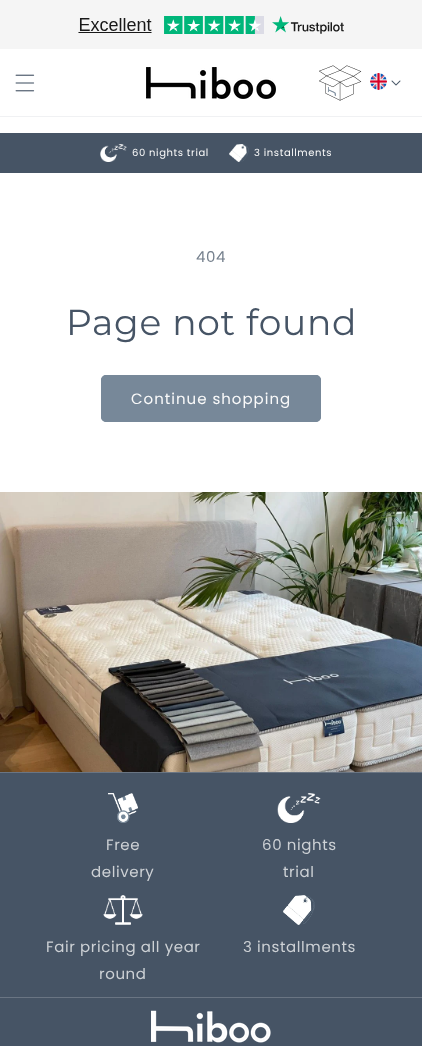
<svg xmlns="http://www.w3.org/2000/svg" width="422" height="1046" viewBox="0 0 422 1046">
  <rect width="100%" height="100%" fill="#fff"/>
  <path d="M0 0h422v49H0z" fill="#f5f5f5"/>
  <image x="78" y="16" width="266" height="18" href="img/1.png"/>
  <path d="M0 116h422v1H0z" fill="#f0f1f3"/>
  <image x="15" y="74" width="20" height="18" href="img/2.png"/>
  <image x="146" y="67" width="130" height="32" href="img/3.png"/>
  <image x="319" y="65" width="43" height="36" href="img/4.png"/>
  <image x="370" y="73" width="17" height="17" href="img/5.png"/>
  <image x="391" y="80" width="10" height="6" href="img/6.png"/>
  <path d="M0 133h422v40H0z" fill="#465465"/>
  <image x="100" y="144" width="27" height="18" href="img/7.png"/>
  <image x="229" y="144" width="20" height="18" href="img/8.png"/>
  <rect x="101" y="375" width="220" height="47" rx="5" fill="#789"/>
  <rect x="101.5" y="375.5" width="219" height="46" rx="4.5" fill="none" stroke="#789"/>
  <image x="0" y="492" width="422" height="280" href="img/9.png"/>
  <path d="M0 773h422v273H0z" fill="#465465"/>
  <path d="M0 772h422v1H0z" fill="#6a7583"/>
  <image x="108" y="793" width="30" height="30" href="img/10.png"/>
  <image x="277" y="793" width="44" height="30" href="img/11.png"/>
  <image x="103" y="895" width="40" height="30" href="img/12.png"/>
  <image x="283" y="895" width="32" height="30" href="img/13.png"/>
  <path d="M0 997h422v1H0z" fill="#6a7583"/>
  <image x="151" y="1010" width="120" height="33" href="img/14.png"/>
  <g font-family="Poppins" font-size="10" letter-spacing="0.6" fill="#fafafa">
    <text x="132" y="156">60 nights trial</text>
    <text x="254" y="156">3 installments</text>
  </g>
  <text x="196" y="262" font-family="Poppins" font-size="15" letter-spacing="0.6" fill="#747f8c">404</text>
  <text x="66" y="335" font-family="Montserrat" font-size="36" letter-spacing="0.75" fill="#465465">Page not found</text>
  <text x="131" y="404" font-family="Poppins" font-size="15" letter-spacing="1" fill="#fafafa">Continue shopping</text>
  <g font-family="Poppins" font-size="15" letter-spacing="0.6" fill="#cdd1d5">
    <text x="106" y="850">Free</text>
    <text x="91" y="877">delivery</text>
    <text x="262" y="850">60 nights</text>
    <text x="283" y="877">trial</text>
    <text x="46" y="952">Fair pricing all year</text>
    <text x="99" y="979">round</text>
    <text x="243" y="952">3 installments</text>
  </g>
</svg>
